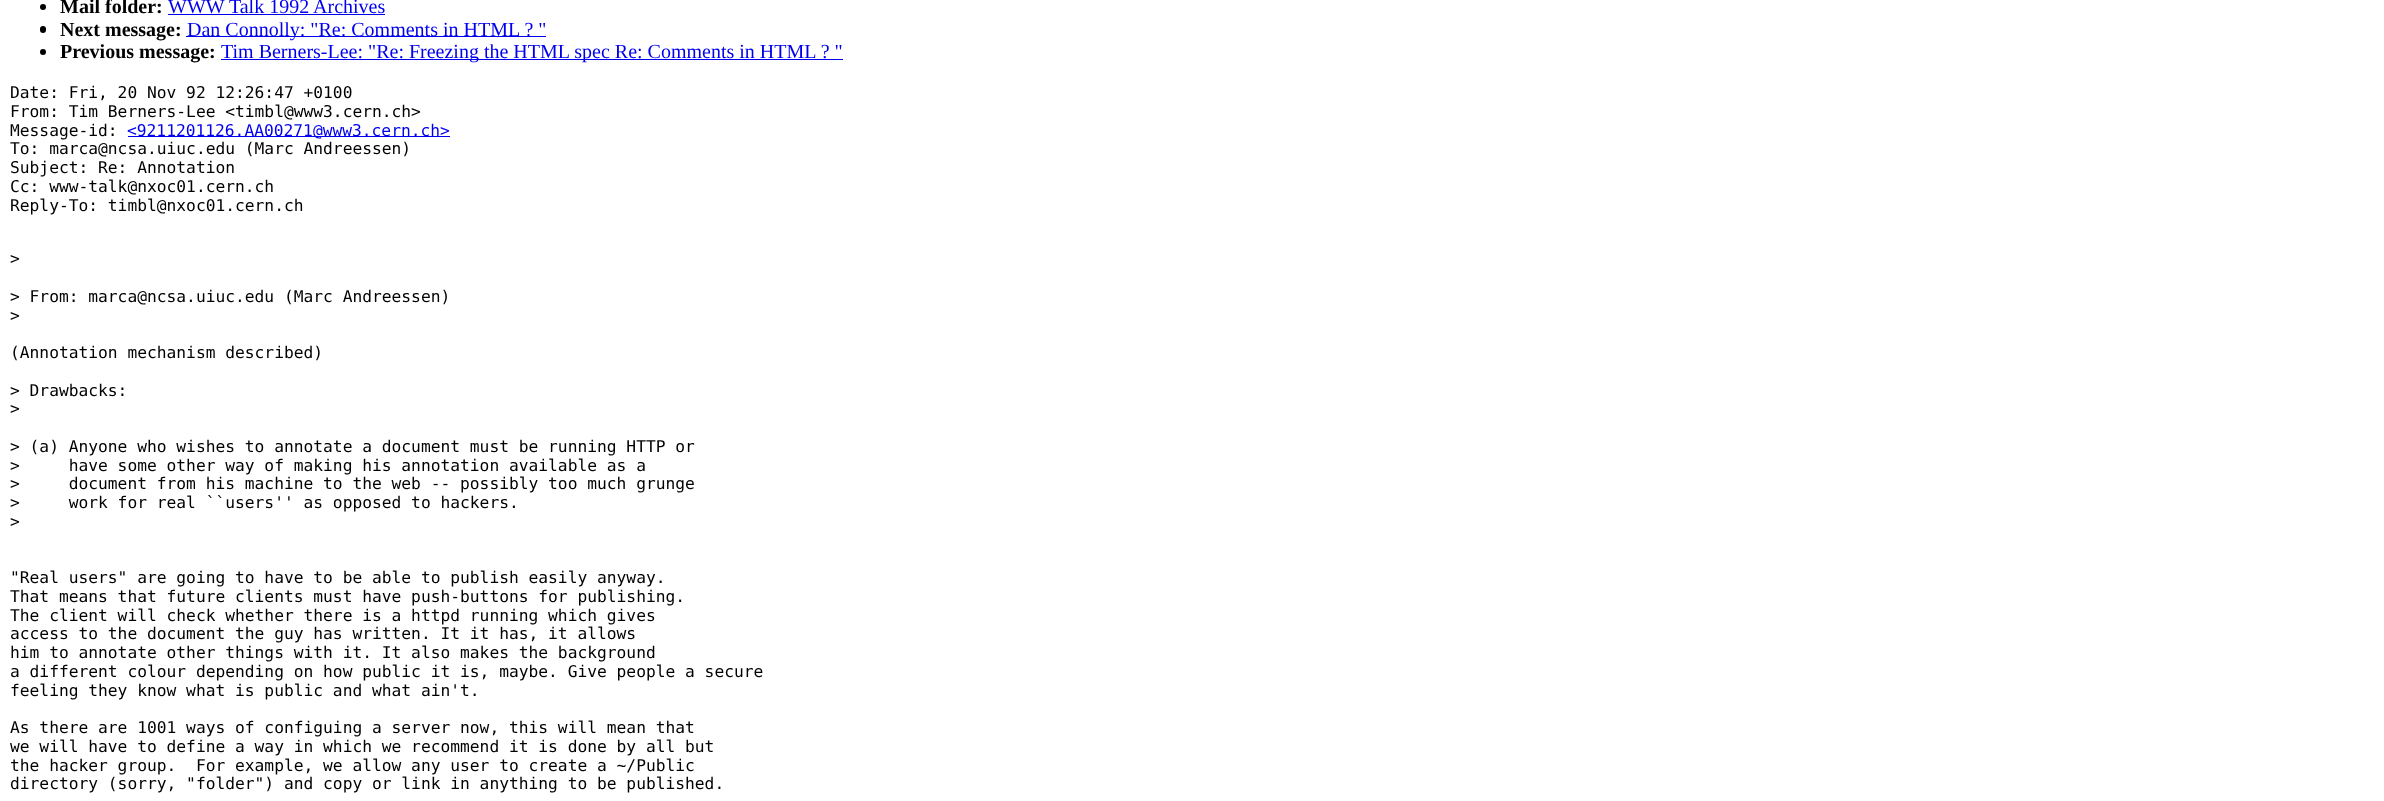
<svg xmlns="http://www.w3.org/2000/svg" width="2384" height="801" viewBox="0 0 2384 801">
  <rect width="100%" height="100%" fill="#fff"/>
  <circle cx="43" cy="7" r="3" fill="#000"/>
  <path d="M168 14h217v1H168z" fill="#00e"/>
  <rect x="40" y="26" width="6" height="7" rx="3" fill="#000"/>
  <path d="M186 36h360v1H186z" fill="#00e"/>
  <circle cx="43" cy="52" r="3" fill="#000"/>
  <path d="M221 59h622v1H221z" fill="#00e"/>
  <path d="M128 136h322v1H128z" fill="#00e"/>
  <text x="60" y="13" font-family="Liberation Serif" font-size="20" font-weight="bold" fill="#000">Mail folder:</text>
  <text x="168" y="13" font-family="Liberation Serif" font-size="20" fill="#00e">WWW Talk 1992 Archives</text>
  <text x="60" y="36" font-family="Liberation Serif" font-size="20" font-weight="bold" fill="#000">Next message:</text>
  <text x="187" y="36" font-family="Liberation Serif" font-size="20" fill="#00e">Dan Connolly: "Re: Comments in HTML ? "</text>
  <text x="60" y="58" font-family="Liberation Serif" font-size="20" font-weight="bold" fill="#000">Previous message:</text>
  <text x="221" y="58" font-family="Liberation Serif" font-size="20" fill="#00e">Tim Berners-Lee: "Re: Freezing the HTML spec Re: Comments in HTML ? "</text>
  <g font-family="DejaVu Sans Mono" font-size="16.25" fill="#000">
    <text x="10" y="98">Date: Fri, 20 Nov 92 12:26:47 +0100</text>
    <text x="10" y="117">From: Tim Berners-Lee &lt;timbl@www3.cern.ch&gt;</text>
    <text x="10" y="136">Message-id:</text>
  </g>
  <text x="127" y="136" font-family="DejaVu Sans Mono" font-size="16.25" fill="#00e">&lt;9211201126.AA00271@www3.cern.ch&gt;</text>
  <g font-family="DejaVu Sans Mono" font-size="16.25" fill="#000">
    <text x="10" y="154">To: marca@ncsa.uiuc.edu (Marc Andreessen)</text>
    <text x="10" y="173">Subject: Re: Annotation</text>
    <text x="10" y="192">Cc: www-talk@nxoc01.cern.ch</text>
    <text x="10" y="211">Reply-To: timbl@nxoc01.cern.ch</text>
    <text x="10" y="264">&gt;</text>
    <text x="10" y="302">&gt; From: marca@ncsa.uiuc.edu (Marc Andreessen)</text>
    <text x="10" y="321">&gt;</text>
    <text x="10" y="358">(Annotation mechanism described)</text>
    <text x="10" y="396">&gt; Drawbacks:</text>
    <text x="10" y="414">&gt;</text>
    <text x="10" y="452">&gt; (a) Anyone who wishes to annotate a document must be running HTTP or</text>
    <text x="10" y="471" xml:space="preserve">&gt;     have some other way of making his annotation available as a</text>
    <text x="10" y="489" xml:space="preserve">&gt;     document from his machine to the web -- possibly too much grunge</text>
    <text x="10" y="508" xml:space="preserve">&gt;     work for real ``users'' as opposed to hackers.</text>
    <text x="10" y="527">&gt;</text>
    <text x="10" y="583">"Real users" are going to have to be able to publish easily anyway.</text>
    <text x="10" y="602">That means that future clients must have push-buttons for publishing.</text>
    <text x="10" y="621">The client will check whether there is a httpd running which gives</text>
    <text x="10" y="639">access to the document the guy has written. It it has, it allows</text>
    <text x="10" y="658">him to annotate other things with it. It also makes the background</text>
    <text x="10" y="677">a different colour depending on how public it is, maybe. Give people a secure</text>
    <text x="10" y="696">feeling they know what is public and what ain't.</text>
    <text x="10" y="733">As there are 1001 ways of configuing a server now, this will mean that</text>
    <text x="10" y="752">we will have to define a way in which we recommend it is done by all but</text>
    <text x="10" y="771" xml:space="preserve">the hacker group.  For example, we allow any user to create a ~/Public</text>
    <text x="10" y="789">directory (sorry, "folder") and copy or link in anything to be published.</text>
  </g>
</svg>
